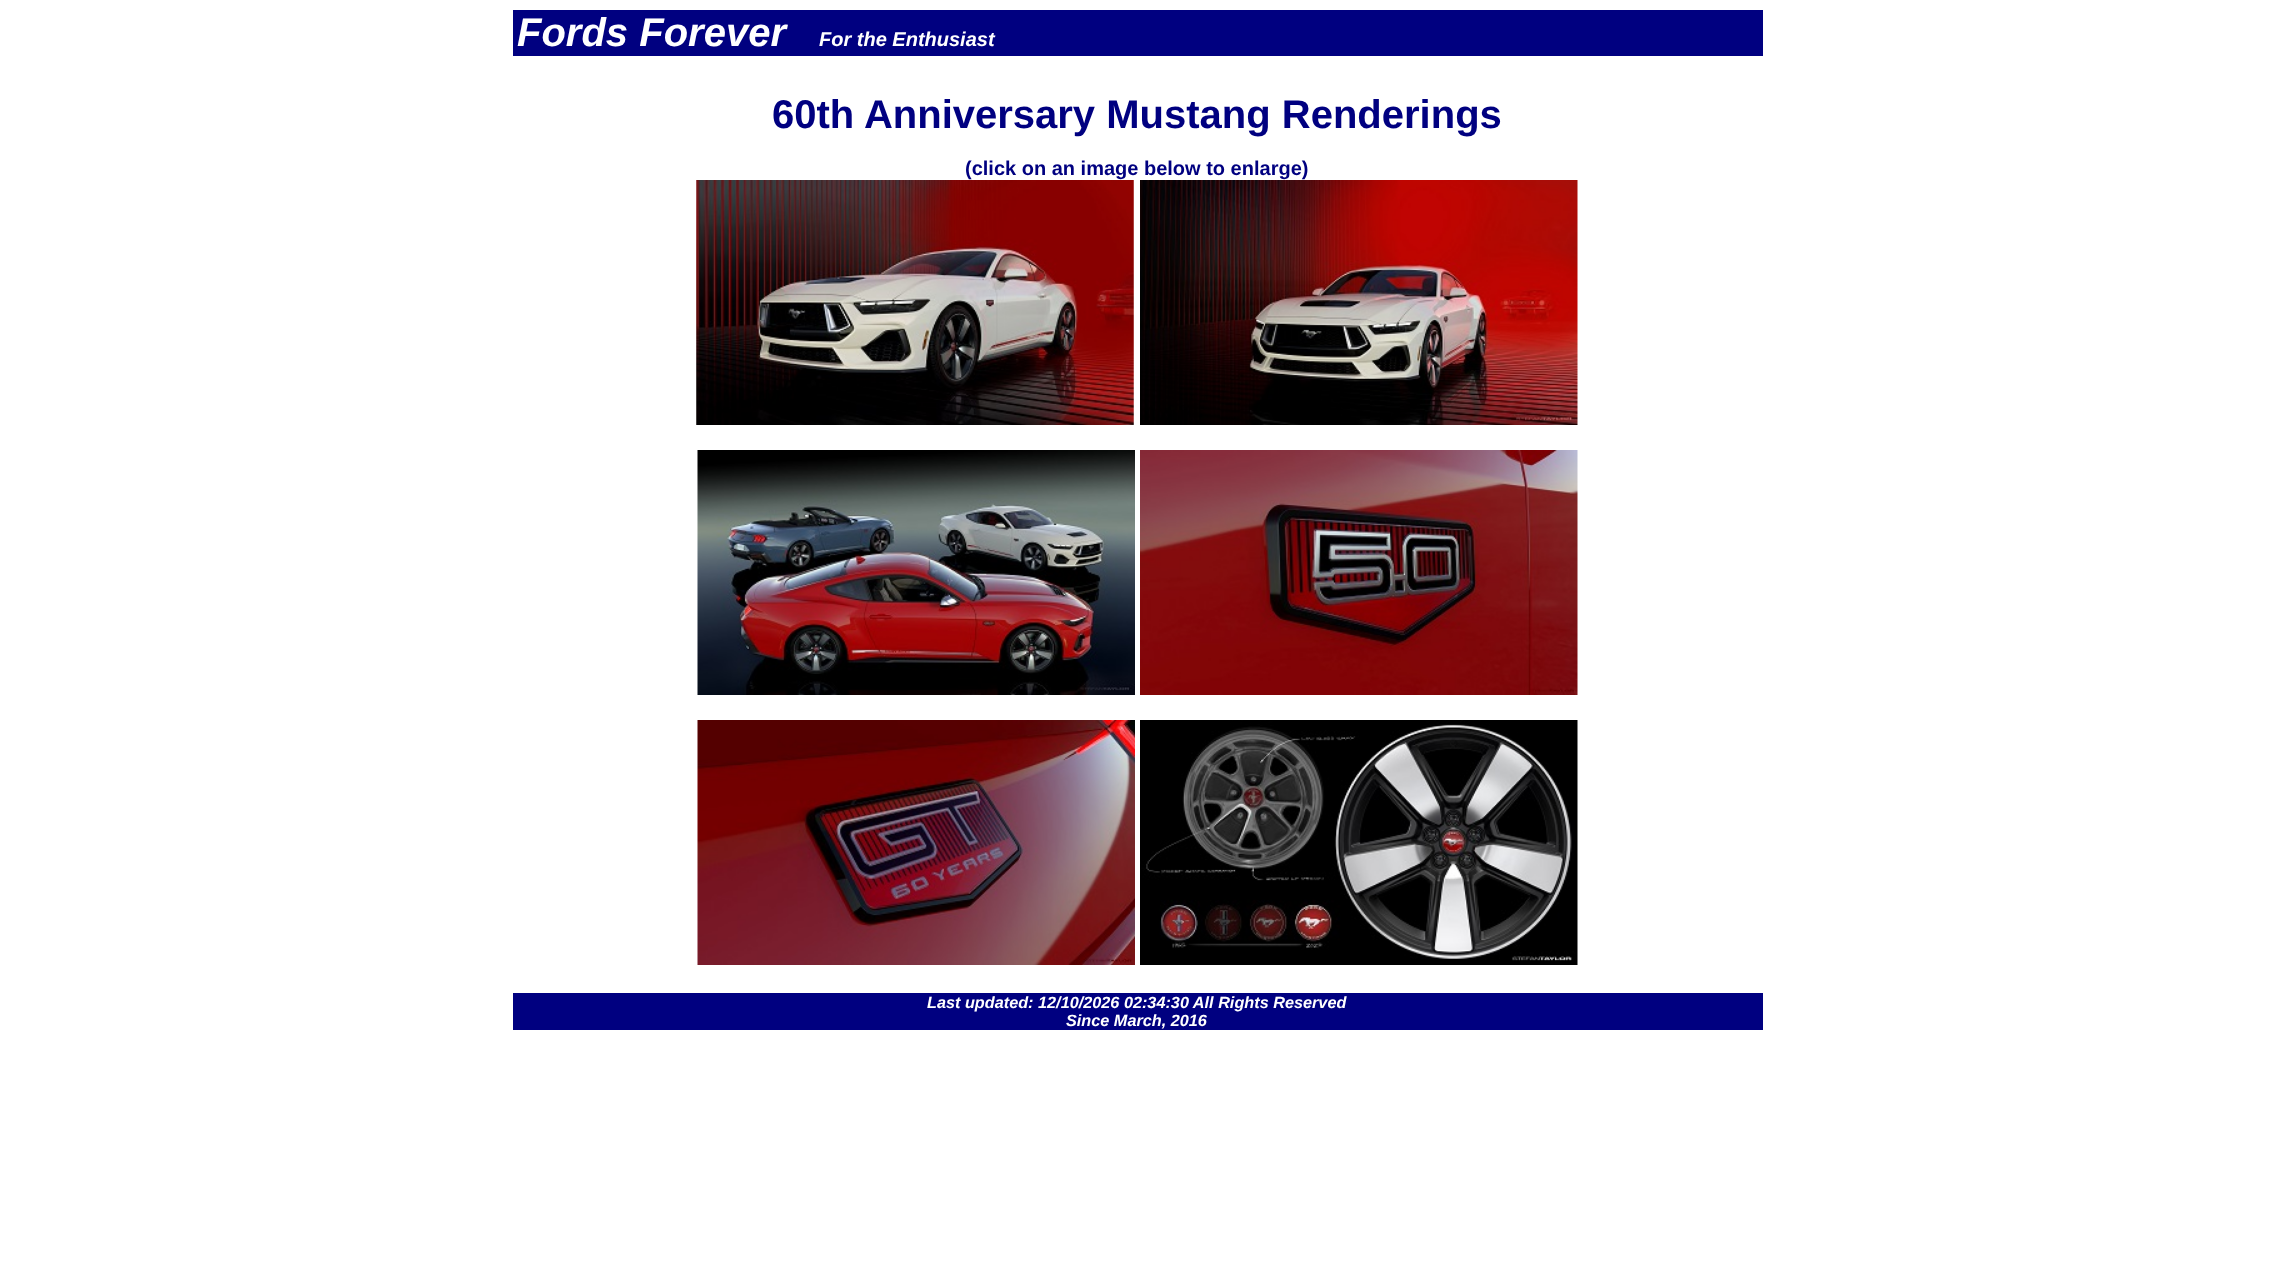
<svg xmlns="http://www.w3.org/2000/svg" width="2273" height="1263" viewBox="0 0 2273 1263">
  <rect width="100%" height="100%" fill="#fff"/>
  <path d="M513 10h1250v46H513z" fill="#000080"/>
  <image x="696" y="180" width="438" height="245" href="img/1.png"/>
  <image x="1140" y="180" width="438" height="245" href="img/2.png"/>
  <image x="697" y="450" width="438" height="245" href="img/3.png"/>
  <image x="1140" y="450" width="438" height="245" href="img/4.png"/>
  <image x="697" y="720" width="438" height="245" href="img/5.png"/>
  <image x="1140" y="720" width="438" height="245" href="img/6.png"/>
  <path d="M513 993h1250v37H513z" fill="#000080"/>
  <text x="517" y="46" font-family="Liberation Sans" font-size="40" font-weight="bold" font-style="italic" fill="#fff">Fords Forever</text>
  <text x="819" y="46" font-family="Liberation Sans" font-size="20" font-weight="bold" font-style="italic" fill="#fff">For the Enthusiast</text>
  <text x="772" y="128" font-family="Liberation Sans" font-size="40" font-weight="bold" fill="#000080">60th Anniversary Mustang Renderings</text>
  <text x="965" y="175" font-family="Liberation Sans" font-size="20" font-weight="bold" fill="#000080">(click on an image below to enlarge)</text>
  <g font-family="Liberation Sans" font-size="16.25" font-weight="bold" font-style="italic" fill="#fff">
    <text x="927" y="1008">Last updated: 12/10/2026 02:34:30 All Rights Reserved</text>
    <text x="1066" y="1026">Since March, 2016</text>
  </g>
</svg>
